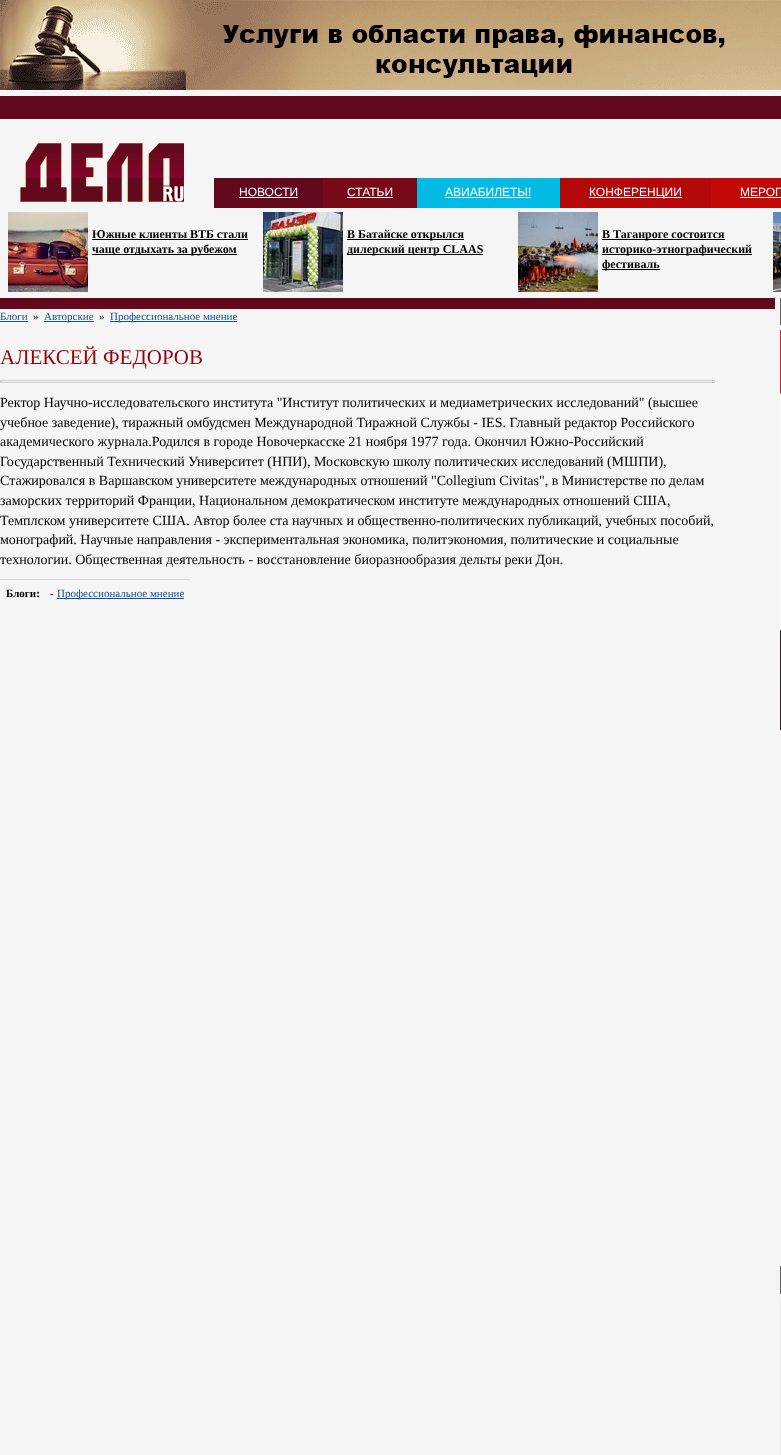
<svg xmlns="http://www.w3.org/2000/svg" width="781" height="1455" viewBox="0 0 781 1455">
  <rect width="100%" height="100%" fill="#f5f5f5"/>
  <image x="0" y="0" width="781" height="90" href="img/1.png"/>
  <path d="M0 96h781v23H0z" fill="#62091d"/>
  <image x="20" y="143" width="164" height="59" href="img/2.png"/>
  <path d="M214 178h109v30H214z" fill="#62091d"/>
  <path d="M239 197h59v1H239z" fill="#fff"/>
  <path d="M323 178h94v30H323z" fill="#770918"/>
  <path d="M347 197h46v1H347z" fill="#fff"/>
  <path d="M417 178h143v30H417z" fill="#03bae4"/>
  <path d="M445 197h86v1H445z" fill="#fff"/>
  <path d="M560 178h151v30H560z" fill="#b5080b"/>
  <path d="M589 197h93v1H589z" fill="#fff"/>
  <path d="M711 178h70v30H711z" fill="#c30808"/>
  <path d="M740 197h41v1H740z" fill="#fff"/>
  <image x="8" y="212" width="80" height="80" href="img/3.png"/>
  <path d="M92 239h156v1H92z" fill="#000"/>
  <path d="M92 254h145v1H92z" fill="#000"/>
  <image x="263" y="212" width="80" height="80" href="img/4.png"/>
  <path d="M347 239h117v1H347z" fill="#000"/>
  <path d="M347 254h136v1H347z" fill="#000"/>
  <image x="518" y="212" width="80" height="80" href="img/5.png"/>
  <path d="M602 239h123v1H602z" fill="#000"/>
  <path d="M602 254h150v1H602z" fill="#000"/>
  <path d="M602 269h58v1H602z" fill="#000"/>
  <image x="773" y="212" width="8" height="80" href="img/6.png"/>
  <path d="M0 298h775v11H0z" fill="#62091d"/>
  <path d="M0 321h28v1H0z" fill="#0e5196"/>
  <path d="M44 321h50v1H44z" fill="#0e5196"/>
  <path d="M110 321h127v1H110z" fill="#0e5196"/>
  <path d="M0.5 380.5h714v2H0.5z" fill="none" stroke="#ccc"/>
  <path d="M0 579h190v1H0z" fill="#d5d5d5"/>
  <path d="M57 598h127v1H57z" fill="#0e5196"/>
  <path d="M780 298h1v27H780z" fill="#636363"/>
  <image x="780" y="330" width="1" height="400" href="img/7.png"/>
  <path d="M780 1266h1v28H780z" fill="#636363"/>
  <path d="M780 1299h1v156H780z" fill="#e6e7e7"/>
  <g font-family="Liberation Sans" font-size="12" fill="#fff">
    <text x="239" y="196">НОВОСТИ</text>
    <text x="347" y="196">СТАТЬИ</text>
    <text x="445" y="196">АВИАБИЛЕТЫ!</text>
    <text x="589" y="196">КОНФЕРЕНЦИИ</text>
    <text x="740" y="196">МЕРОП</text>
  </g>
  <g font-family="Liberation Serif" font-size="12" font-weight="bold" fill="#000">
    <text x="92" y="238">Южные клиенты ВТБ стали</text>
    <text x="92" y="253">чаще отдыхать за рубежом</text>
    <text x="347" y="238">В Батайске открылся</text>
    <text x="347" y="253">дилерский центр CLAAS</text>
    <text x="602" y="238">В Таганроге состоится</text>
    <text x="602" y="253">историко-этнографический</text>
    <text x="602" y="268">фестиваль</text>
  </g>
  <text x="0" y="320" font-family="Liberation Serif" font-size="11" fill="#0e5196">Блоги</text>
  <text x="33" y="320" font-family="Liberation Serif" font-size="11" fill="#000">»</text>
  <text x="44" y="320" font-family="Liberation Serif" font-size="11" fill="#0e5196">Авторские</text>
  <text x="99" y="320" font-family="Liberation Serif" font-size="11" fill="#000">»</text>
  <text x="110" y="320" font-family="Liberation Serif" font-size="11" fill="#0e5196">Профессиональное мнение</text>
  <text x="0" y="364" font-family="Liberation Serif" font-size="21" fill="#920510">АЛЕКСЕЙ ФЕДОРОВ</text>
  <g font-family="Liberation Serif" font-size="14" fill="#000">
    <text x="0" y="407">Ректор Научно-исследовательского института "Институт политических и медиаметрических исследований" (высшее</text>
    <text x="0" y="427">учебное заведение), тиражный омбудсмен Международной Тиражной Службы - IES. Главный редактор Российского</text>
    <text x="0" y="446">академического журнала.Родился в городе Новочеркасске 21 ноября 1977 года. Окончил Южно-Российский</text>
    <text x="0" y="466">Государственный Технический Университет (НПИ), Московскую школу политических исследований (МШПИ),</text>
    <text x="0" y="485">Стажировался в Варшавском университете международных отношений "Collegium Civitas", в Министерстве по делам</text>
    <text x="0" y="505">заморских территорий Франции, Национальном демократическом институте международных отношений США,</text>
    <text x="0" y="525">Темплском университете США. Автор более ста научных и общественно-политических публикаций, учебных пособий,</text>
    <text x="0" y="544">монографий. Научные направления - экспериментальная экономика, политэкономия, политические и социальные</text>
    <text x="0" y="564">технологии. Общественная деятельность - восстановление биоразнообразия дельты реки Дон.</text>
  </g>
  <text x="6" y="597" font-family="Liberation Serif" font-size="11" font-weight="bold" fill="#000">Блоги:</text>
  <text x="50" y="597" font-family="Liberation Serif" font-size="11" fill="#000">-</text>
  <text x="57" y="597" font-family="Liberation Serif" font-size="11" fill="#0e5196">Профессиональное мнение</text>
</svg>
